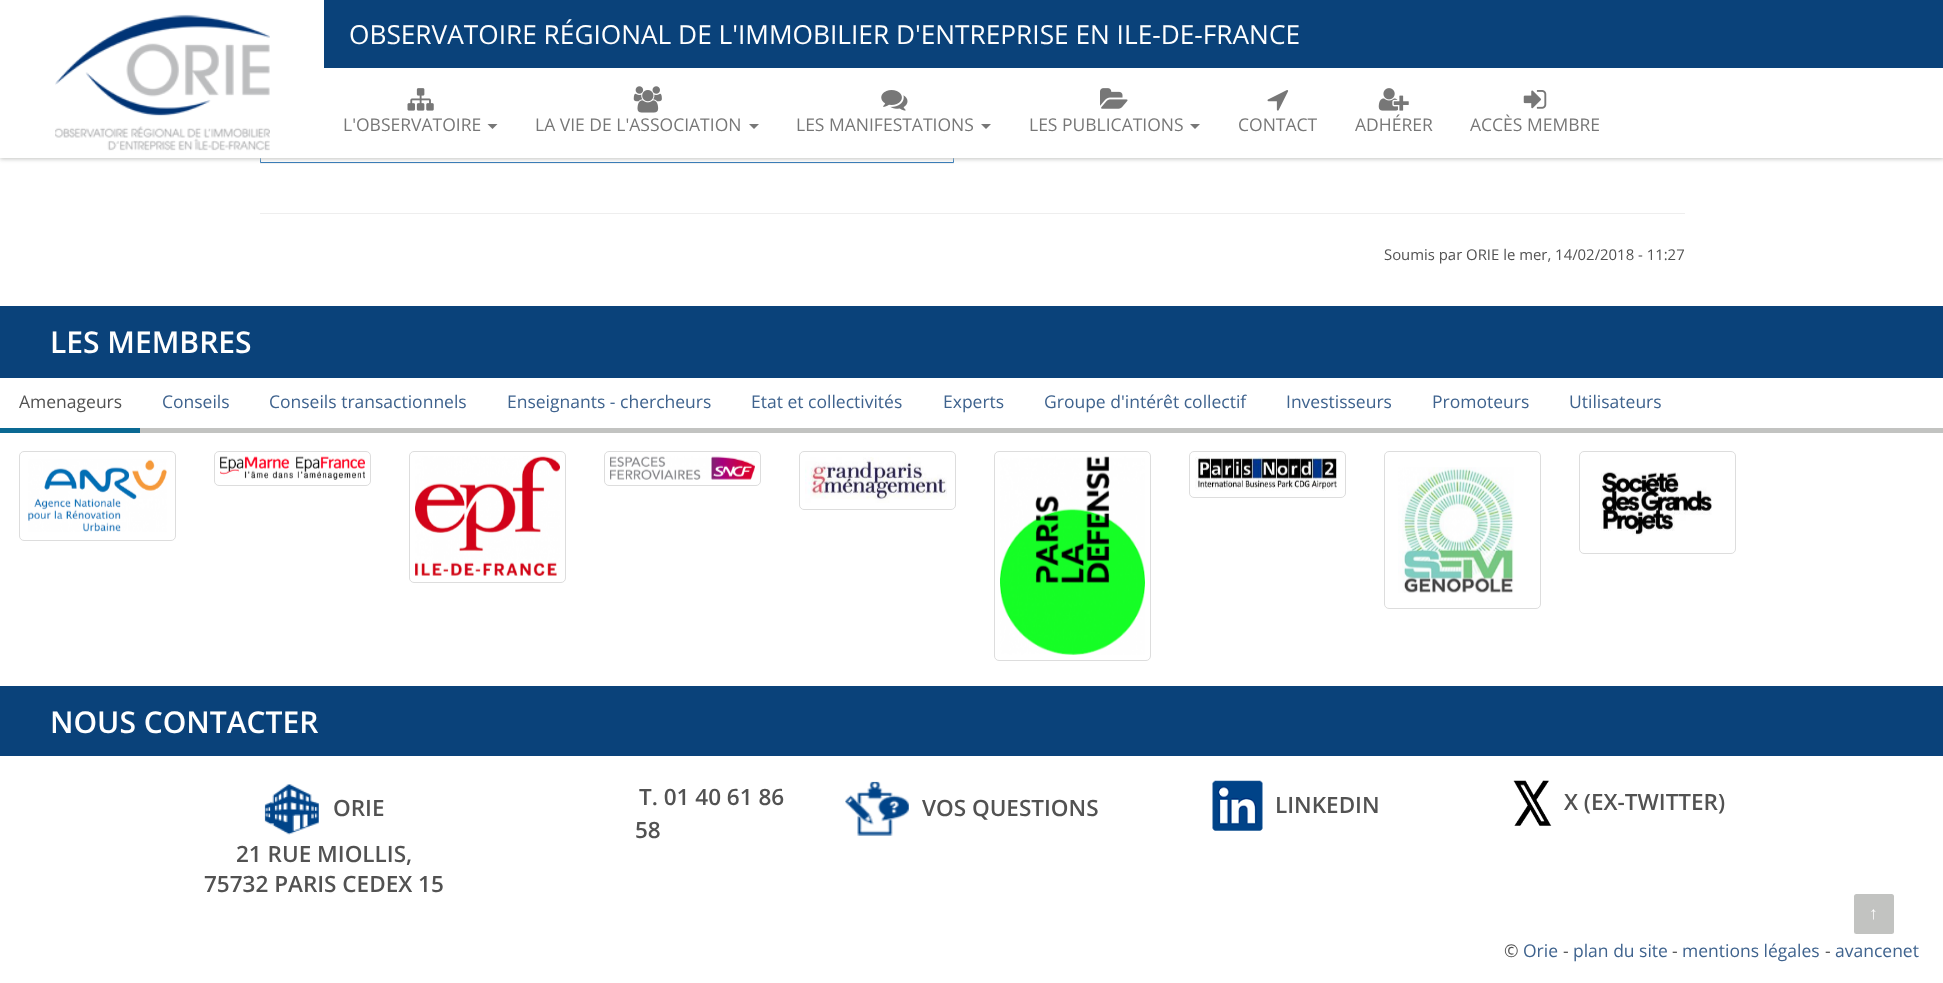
<svg xmlns="http://www.w3.org/2000/svg" width="1943" height="983" viewBox="0 0 1943 983">
  <rect width="100%" height="100%" fill="#fff"/>
  <path d="M260 -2h694v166H260z" fill="#0000000d" filter="blur(0.5px)"/>
  <path d="M261 158h692v4H261z" fill="#fff"/>
  <path d="M260.5 -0.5h693v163H260.5z" fill="none" stroke="#337ab7"/>
  <path d="M0 1h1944v158H0z" fill="#c2c3c1" filter="blur(2px)"/>
  <path d="M0 0h1943v158H0z" fill="#fff"/>
  <image x="55" y="14" width="215" height="137" href="img/1.png"/>
  <path d="M324 0h1619v68H324z" fill="#0a427a"/>
  <image x="407" y="88" width="27" height="23" href="img/2.png"/>
  <path d="M487.5 124H497.5L492.5 129Z" fill="#777"/>
  <image x="633" y="86" width="29" height="27" href="img/3.png"/>
  <path d="M749 124H759L754 129Z" fill="#777"/>
  <image x="881" y="90" width="27" height="21" href="img/4.png"/>
  <path d="M981 124H991L986 129Z" fill="#777"/>
  <image x="1100" y="88" width="28" height="21" href="img/5.png"/>
  <path d="M1190 124H1200L1195 129Z" fill="#777"/>
  <image x="1267" y="90" width="22" height="21" href="img/6.png"/>
  <image x="1378" y="88" width="31" height="23" href="img/7.png"/>
  <image x="1523" y="90" width="24" height="19" href="img/8.png"/>
  <path d="M260 213h1425v1H260z" fill="#eee"/>
  <path d="M0 306h1943v72H0z" fill="#0a427a"/>
  <path d="M140 428h1803v5H140z" fill="#c2c3c1"/>
  <path d="M0 428h140v5H0z" fill="#0a6993"/>
  <rect x="19.5" y="451.5" width="156" height="89" rx="4.5" fill="none" stroke="#ddd"/>
  <image x="28" y="459" width="139" height="73" href="img/9.png"/>
  <rect x="214.5" y="451.5" width="156" height="34" rx="4.5" fill="none" stroke="#ddd"/>
  <image x="220" y="456" width="145" height="24" href="img/10.png"/>
  <rect x="409.5" y="451.5" width="156" height="131" rx="4.5" fill="none" stroke="#ddd"/>
  <image x="415" y="456" width="145" height="120" href="img/11.png"/>
  <rect x="604.5" y="451.5" width="156" height="34" rx="4.5" fill="none" stroke="#ddd"/>
  <image x="610" y="456" width="145" height="24" href="img/12.png"/>
  <rect x="799.5" y="451.5" width="156" height="58" rx="4.5" fill="none" stroke="#ddd"/>
  <image x="805" y="457" width="142" height="46" href="img/13.png"/>
  <rect x="994.5" y="451.5" width="156" height="209" rx="4.5" fill="none" stroke="#ddd"/>
  <image x="1000" y="456" width="145" height="199" href="img/14.png"/>
  <rect x="1189.5" y="451.5" width="156" height="46" rx="4.5" fill="none" stroke="#ddd"/>
  <image x="1195" y="457" width="142" height="34" href="img/15.png"/>
  <rect x="1384.5" y="451.5" width="156" height="157" rx="4.5" fill="none" stroke="#ddd"/>
  <image x="1398" y="467" width="116" height="126" href="img/16.png"/>
  <rect x="1579.5" y="451.5" width="156" height="102" rx="4.5" fill="none" stroke="#ddd"/>
  <image x="1601" y="471" width="111" height="65" href="img/17.png"/>
  <path d="M0 686h1943v70H0z" fill="#0a427a"/>
  <image x="264" y="784" width="55" height="51" href="img/18.png"/>
  <image x="845" y="781" width="64" height="55" href="img/19.png"/>
  <image x="1212" y="780" width="51" height="51" href="img/20.png"/>
  <image x="1513" y="780" width="39" height="46" href="img/21.png"/>
  <rect x="1854" y="894" width="40" height="40" rx="2.5" fill="#c2c3c1"/>
  <text x="349" y="44" font-family="Open Sans" font-size="26.25" fill="#fff">OBSERVATOIRE RÉGIONAL DE L'IMMOBILIER D'ENTREPRISE EN ILE-DE-FRANCE</text>
  <g font-family="Open Sans" font-size="17.5" fill="#777">
    <text x="343" y="131">L'OBSERVATOIRE</text>
    <text x="535" y="131">LA VIE DE L'ASSOCIATION</text>
    <text x="796" y="131">LES MANIFESTATIONS</text>
    <text x="1029" y="131">LES PUBLICATIONS</text>
    <text x="1238" y="131">CONTACT</text>
    <text x="1355" y="131">ADHÉRER</text>
    <text x="1470" y="131">ACCÈS MEMBRE</text>
  </g>
  <text x="1384" y="260" font-family="Open Sans" font-size="14.9" fill="#525252">Soumis par ORIE le mer, 14/02/2018 - 11:27</text>
  <text x="50" y="353" font-family="Open Sans" font-size="30" font-weight="600" fill="#fff">LES MEMBRES</text>
  <text x="19" y="408" font-family="Open Sans" font-size="17.5" fill="#525252">Amenageurs</text>
  <g font-family="Open Sans" font-size="17.5" fill="#3f638e">
    <text x="162" y="408">Conseils</text>
    <text x="269" y="408">Conseils transactionnels</text>
    <text x="507" y="408">Enseignants - chercheurs</text>
    <text x="751" y="408">Etat et collectivités</text>
    <text x="943" y="408">Experts</text>
    <text x="1044" y="408">Groupe d'intérêt collectif</text>
    <text x="1286" y="408">Investisseurs</text>
    <text x="1432" y="408">Promoteurs</text>
    <text x="1569" y="408">Utilisateurs</text>
  </g>
  <text x="50" y="733" font-family="Open Sans" font-size="30" font-weight="600" fill="#fff">NOUS CONTACTER</text>
  <g font-family="Open Sans" font-size="22.5" font-weight="600" fill="#525252">
    <text x="333" y="816">ORIE</text>
    <text x="236" y="862">21 RUE MIOLLIS,</text>
    <text x="204" y="892">75732 PARIS CEDEX 15</text>
    <text x="639" y="805">T. 01 40 61 86</text>
    <text x="635" y="838">58</text>
    <text x="922" y="816">VOS QUESTIONS</text>
    <text x="1275" y="813">LINKEDIN</text>
    <text x="1564" y="810">X (EX-TWITTER)</text>
  </g>
  <text x="1869" y="919" font-family="Liberation Sans" font-size="17.5" fill="#fff">↑</text>
  <text x="1504" y="957" font-family="Open Sans" font-size="17.5" fill="#525252">©</text>
  <text x="1523" y="957" font-family="Open Sans" font-size="17.5" fill="#3f638e">Orie</text>
  <text x="1563" y="957" font-family="Open Sans" font-size="17.5" fill="#525252">-</text>
  <text x="1573" y="957" font-family="Open Sans" font-size="17.5" fill="#3f638e">plan du site</text>
  <text x="1672" y="957" font-family="Open Sans" font-size="17.5" fill="#525252">-</text>
  <text x="1682" y="957" font-family="Open Sans" font-size="17.5" fill="#3f638e">mentions légales</text>
  <text x="1825" y="957" font-family="Open Sans" font-size="17.5" fill="#525252">-</text>
  <text x="1835" y="957" font-family="Open Sans" font-size="17.5" fill="#3f638e">avancenet</text>
</svg>
